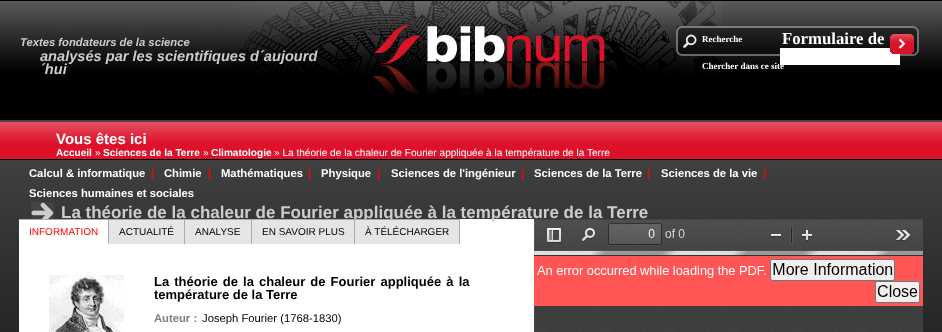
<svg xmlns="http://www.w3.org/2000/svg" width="942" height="332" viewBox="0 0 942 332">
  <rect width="100%" height="100%" fill="#000"/>
  <image x="0" y="120" width="942" height="212" href="img/1.png"/>
  <image x="0" y="1" width="942" height="69" href="img/2.png"/>
  <image x="229" y="1" width="494" height="95" href="img/3.png"/>
  <image x="676" y="26" width="243" height="30" href="img/4.png"/>
  <path d="M780 48h120v17H780z" fill="#fff"/>
  <image x="890" y="34" width="24" height="20" href="img/5.png"/>
  <path d="M0 143h942v16H0z" fill="#dd122a"/>
  <image x="0" y="122" width="942" height="21" href="img/6.png"/>
  <path d="M0 159h942v1H0z" fill="#000"/>
  <image x="31" y="202" width="23" height="17" href="img/7.png"/>
  <path d="M19 219h515v113H19z" fill="#fff"/>
  <image x="49" y="275" width="75" height="57" href="img/9.png"/>
  <text x="20" y="46" font-family="Liberation Sans" font-size="11.25" font-weight="bold" font-style="italic" fill="#ccc">Textes fondateurs de la science</text>
  <g font-family="Liberation Sans" font-size="14.6" font-weight="bold" font-style="italic" fill="#ccc">
    <text x="40" y="61">analysés par les scientifiques d´aujourd</text>
    <text x="40" y="74">´hui</text>
  </g>
  <text x="702" y="42" font-family="Liberation Serif" font-size="9" font-weight="bold" fill="#fff">Recherche</text>
  <text x="782" y="44" font-family="Liberation Serif" font-size="16.75" font-weight="bold" fill="#fff">Formulaire de</text>
  <text x="702" y="69" font-family="Liberation Serif" font-size="9" font-weight="bold" fill="#fff">Chercher dans ce site</text>
  <text x="56" y="144" font-family="Liberation Sans" font-size="15" font-weight="bold" fill="#fff">Vous êtes ici</text>
  <text x="56" y="156" font-family="Liberation Sans" font-size="10.1" font-weight="bold" fill="#fff">Accueil</text>
  <text x="95" y="156" font-family="Liberation Sans" font-size="10.1" fill="#fff">»</text>
  <text x="103" y="156" font-family="Liberation Sans" font-size="10.1" font-weight="bold" fill="#fff">Sciences de la Terre</text>
  <text x="203" y="156" font-family="Liberation Sans" font-size="10.1" fill="#fff">»</text>
  <text x="211" y="156" font-family="Liberation Sans" font-size="10.1" font-weight="bold" fill="#fff">Climatologie</text>
  <text x="274" y="156" font-family="Liberation Sans" font-size="10.1" fill="#fff">» La théorie de la chaleur de Fourier appliquée à la température de la Terre</text>
  <text x="29" y="177" font-family="Liberation Sans" font-size="11.25" font-weight="bold" fill="#fff">Calcul &amp; informatique</text>
  <text x="151" y="177" font-family="Liberation Sans" font-size="11.25" font-weight="bold" fill="#f00">|</text>
  <text x="164" y="177" font-family="Liberation Sans" font-size="11.25" font-weight="bold" fill="#fff">Chimie</text>
  <text x="208" y="177" font-family="Liberation Sans" font-size="11.25" font-weight="bold" fill="#f00">|</text>
  <text x="221" y="177" font-family="Liberation Sans" font-size="11.25" font-weight="bold" fill="#fff">Mathématiques</text>
  <text x="308" y="177" font-family="Liberation Sans" font-size="11.25" font-weight="bold" fill="#f00">|</text>
  <text x="321" y="177" font-family="Liberation Sans" font-size="11.25" font-weight="bold" fill="#fff">Physique</text>
  <text x="377" y="177" font-family="Liberation Sans" font-size="11.25" font-weight="bold" fill="#f00">|</text>
  <text x="391" y="177" font-family="Liberation Sans" font-size="11.25" font-weight="bold" fill="#fff">Sciences de l'ingénieur</text>
  <text x="521" y="177" font-family="Liberation Sans" font-size="11.25" font-weight="bold" fill="#f00">|</text>
  <text x="534" y="177" font-family="Liberation Sans" font-size="11.25" font-weight="bold" fill="#fff">Sciences de la Terre</text>
  <text x="647" y="177" font-family="Liberation Sans" font-size="11.25" font-weight="bold" fill="#f00">|</text>
  <text x="661" y="177" font-family="Liberation Sans" font-size="11.25" font-weight="bold" fill="#fff">Sciences de la vie</text>
  <text x="763" y="177" font-family="Liberation Sans" font-size="11.25" font-weight="bold" fill="#f00">|</text>
  <text x="29" y="197" font-family="Liberation Sans" font-size="11.25" font-weight="bold" fill="#fff">Sciences humaines et sociales</text>
  <text x="61" y="218" font-family="Liberation Sans" font-size="17" font-weight="bold" fill="#ccc">La théorie de la chaleur de Fourier appliquée à la température de la Terre</text>
  <path d="M19 219h441v1H19z" fill="#aaa"/>
  <path d="M109 219V245L108 243V220Z" fill="#aaa"/>
  <path d="M109 245H19V243H108Z" fill="#fff"/>
  <text x="29" y="235" font-family="Liberation Sans" font-size="10" fill="#f00">INFORMATION</text>
  <path d="M109 220h75v24H109z" fill="#e5e5e5"/>
  <path d="M184 219h1v25H184z" fill="#aaa"/>
  <text x="119" y="235" font-family="Liberation Sans" font-size="10" fill="#000">ACTUALITÉ</text>
  <path d="M185 220h66v24H185z" fill="#e5e5e5"/>
  <path d="M251 219h1v25H251z" fill="#aaa"/>
  <text x="195" y="235" font-family="Liberation Sans" font-size="10" fill="#000">ANALYSE</text>
  <path d="M252 220h102v24H252z" fill="#e5e5e5"/>
  <path d="M354 219h1v25H354z" fill="#aaa"/>
  <text x="262" y="235" font-family="Liberation Sans" font-size="10" fill="#000">EN SAVOIR PLUS</text>
  <path d="M355 220h104v24H355z" fill="#e5e5e5"/>
  <path d="M459 219h1v25H459z" fill="#aaa"/>
  <text x="365" y="235" font-family="Liberation Sans" font-size="10" fill="#000">À TÉLÉCHARGER</text>
  <image x="534" y="219" width="389" height="113" href="img/8.png"/>
  <g font-family="Liberation Sans" font-size="13" font-weight="bold" fill="#000">
    <text x="154" y="286" word-spacing="1.5">La théorie de la chaleur de Fourier appliquée à la</text>
    <text x="154" y="299">température de la Terre</text>
  </g>
  <text x="154" y="322" font-family="Liberation Sans" font-size="11.25" font-weight="bold" fill="#808080">Auteur :</text>
  <text x="202" y="322" font-family="Liberation Sans" font-size="11.25" fill="#000">Joseph Fourier (1768-1830)</text>
</svg>
